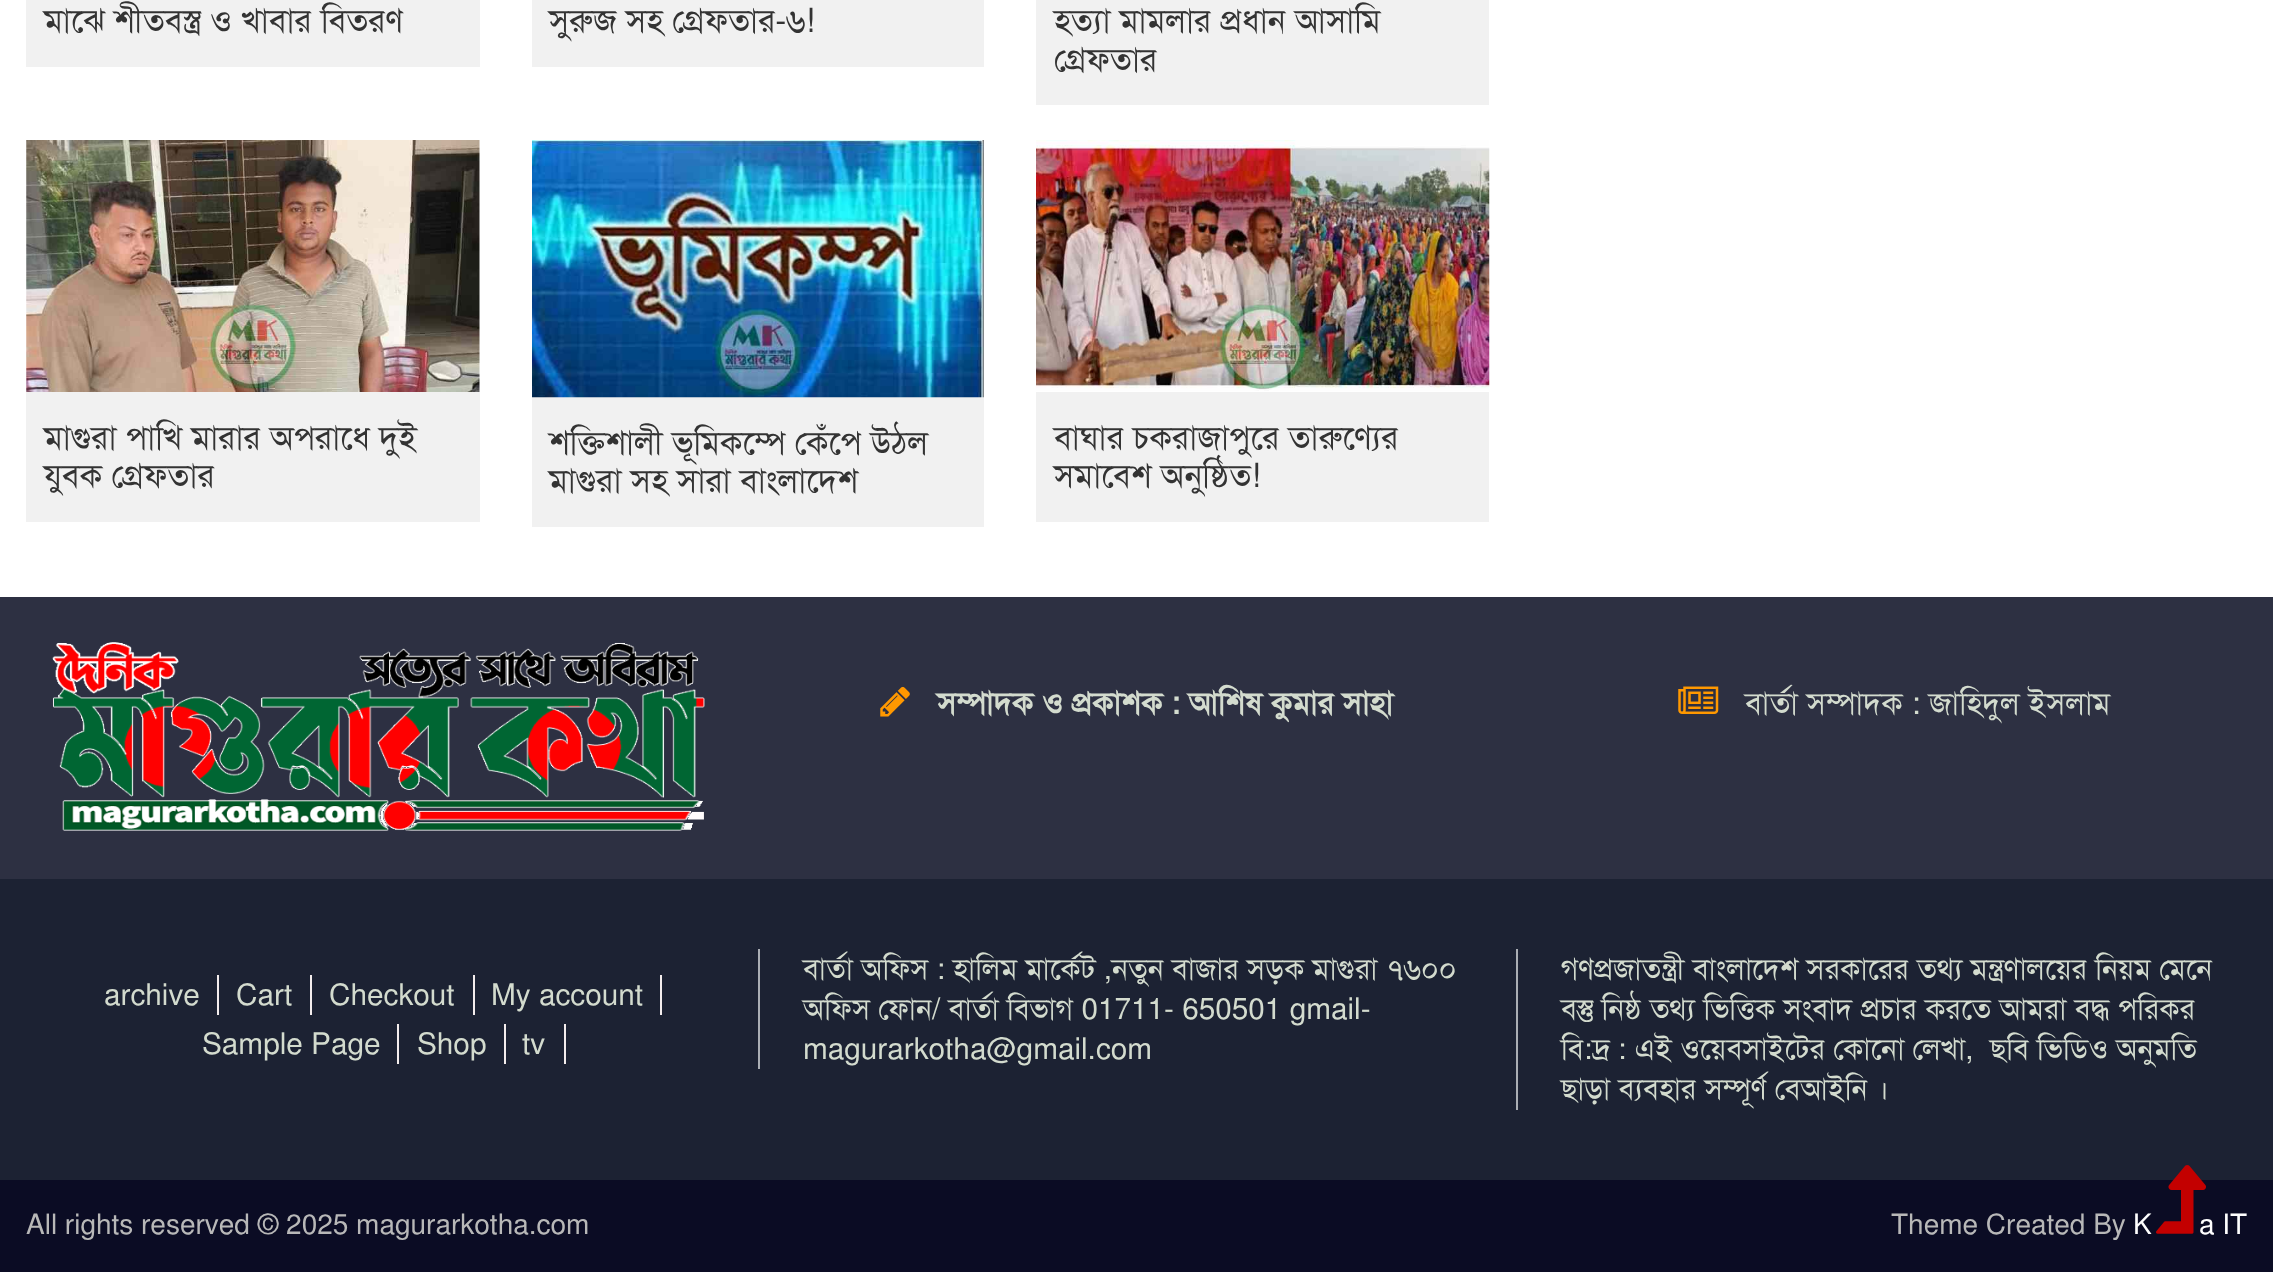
<svg xmlns="http://www.w3.org/2000/svg" width="2273" height="1272" viewBox="0 0 2273 1272">
  <rect width="100%" height="100%" fill="#fff"/>
  <path d="M26 0h454v67H26z" fill="#f1f1f1"/>
  <path d="M532 0h452v67H532z" fill="#f1f1f1"/>
  <path d="M1036 0h453v105H1036z" fill="#f1f1f1"/>
  <image x="26" y="140" width="454" height="252" href="img/1.png"/>
  <path d="M26 392h454v130H26z" fill="#f1f1f1"/>
  <path d="M532 397h452v130H532z" fill="#f1f1f1"/>
  <image x="532" y="140" width="452" height="258" href="img/2.png"/>
  <image x="1036" y="140" width="454" height="251" href="img/3.png"/>
  <path d="M1036 392h453v130H1036z" fill="#f1f1f1"/>
  <path d="M0 597h2273v282H0z" fill="#2d3042"/>
  <image x="52" y="642" width="653" height="189" href="img/4.png"/>
  <image x="880" y="686" width="30" height="31" href="img/5.png"/>
  <image x="1678" y="686" width="41" height="28" href="img/6.png"/>
  <path d="M0 879h2273v301H0z" fill="#1c2233"/>
  <path d="M217 975h2v40H217z" fill="#f3eded"/>
  <path d="M310 975h2v40H310z" fill="#f3eded"/>
  <path d="M473 975h2v40H473z" fill="#f3eded"/>
  <path d="M660 975h2v40H660z" fill="#f3eded"/>
  <path d="M397 1024h2v40H397z" fill="#f3eded"/>
  <path d="M504 1024h2v40H504z" fill="#f3eded"/>
  <path d="M564 1024h2v40H564z" fill="#f3eded"/>
  <path d="M758 949h2v120H758z" fill="#aaaeb4"/>
  <path d="M1516 949h2v161H1516z" fill="#aaaeb4"/>
  <path d="M0 1180h2273v92H0z" fill="#0b0c24"/>
  <g font-family="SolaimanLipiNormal" font-size="33.25" fill="#333">
    <text x="44" y="32">মাঝে শীতবস্ত্র ও খাবার বিতরণ</text>
    <text x="549" y="32">সুরুজ সহ গ্রেফতার-৬!</text>
    <text x="1054" y="32">হত্যা মামলার প্রধান আসামি</text>
    <text x="1054" y="71">গ্রেফতার</text>
    <text x="44" y="449">মাগুরা পাখি মারার অপরাধে দুই</text>
    <text x="44" y="487">যুবক গ্রেফতার</text>
    <text x="549" y="454">শক্তিশালী ভূমিকম্পে কেঁপে উঠল</text>
    <text x="549" y="492">মাগুরা সহ সারা বাংলাদেশ</text>
    <text x="1054" y="449">বাঘার চকরাজাপুরে তারুণ্যের</text>
    <text x="1054" y="487">সমাবেশ অনুষ্ঠিত!</text>
  </g>
  <text x="937" y="714" font-family="SolaimanLipiNormal" font-size="31.5" font-weight="bold" fill="#d3dbce">সম্পাদক ও প্রকাশক : আশিষ কুমার সাহা</text>
  <text x="1745" y="714" font-family="SolaimanLipiNormal" font-size="31.5" fill="#d3dbce">বার্তা সম্পাদক : জাহিদুল ইসলাম</text>
  <g font-family="SolaimanLipiNormal" font-size="29.75" fill="#d3dbce">
    <text x="104" y="1005">archive</text>
    <text x="236" y="1005">Cart</text>
    <text x="329" y="1005">Checkout</text>
    <text x="491" y="1005">My account</text>
    <text x="202" y="1054">Sample Page</text>
    <text x="417" y="1054">Shop</text>
    <text x="522" y="1054">tv</text>
    <text x="803" y="979">বার্তা অফিস : হালিম মার্কেট ,নতুন বাজার সড়ক মাগুরা ৭৬০০</text>
    <text x="803" y="1019">অফিস ফোন/ বার্তা বিভাগ 01711- 650501 gmail-</text>
    <text x="803" y="1059">magurarkotha@gmail.com</text>
    <text x="1561" y="979">গণপ্রজাতন্ত্রী বাংলাদেশ সরকারের তথ্য মন্ত্রণালয়ের নিয়ম মেনে</text>
    <text x="1561" y="1019">বস্তু নিষ্ঠ তথ্য ভিত্তিক সংবাদ প্রচার করতে আমরা বদ্ধ পরিকর</text>
    <text x="1561" y="1059" xml:space="preserve">বি:দ্র : এই ওয়েবসাইটের কোনো লেখা,  ছবি ভিডিও অনুমতি</text>
    <text x="1561" y="1099">ছাড়া ব্যবহার সম্পূর্ণ বেআইনি ।</text>
  </g>
  <g font-family="SolaimanLipiNormal" font-size="28" fill="#b8b8b8">
    <text x="26" y="1234">All rights reserved © 2025 magurarkotha.com</text>
    <text x="1891" y="1234">Theme Created By</text>
  </g>
  <g font-family="SolaimanLipiNormal" font-size="28" fill="#fff">
    <text x="2133" y="1234">K</text>
    <text x="2199" y="1234">a IT</text>
  </g>
  <image x="2156" y="1165" width="50" height="69" href="img/7.png"/>
</svg>
